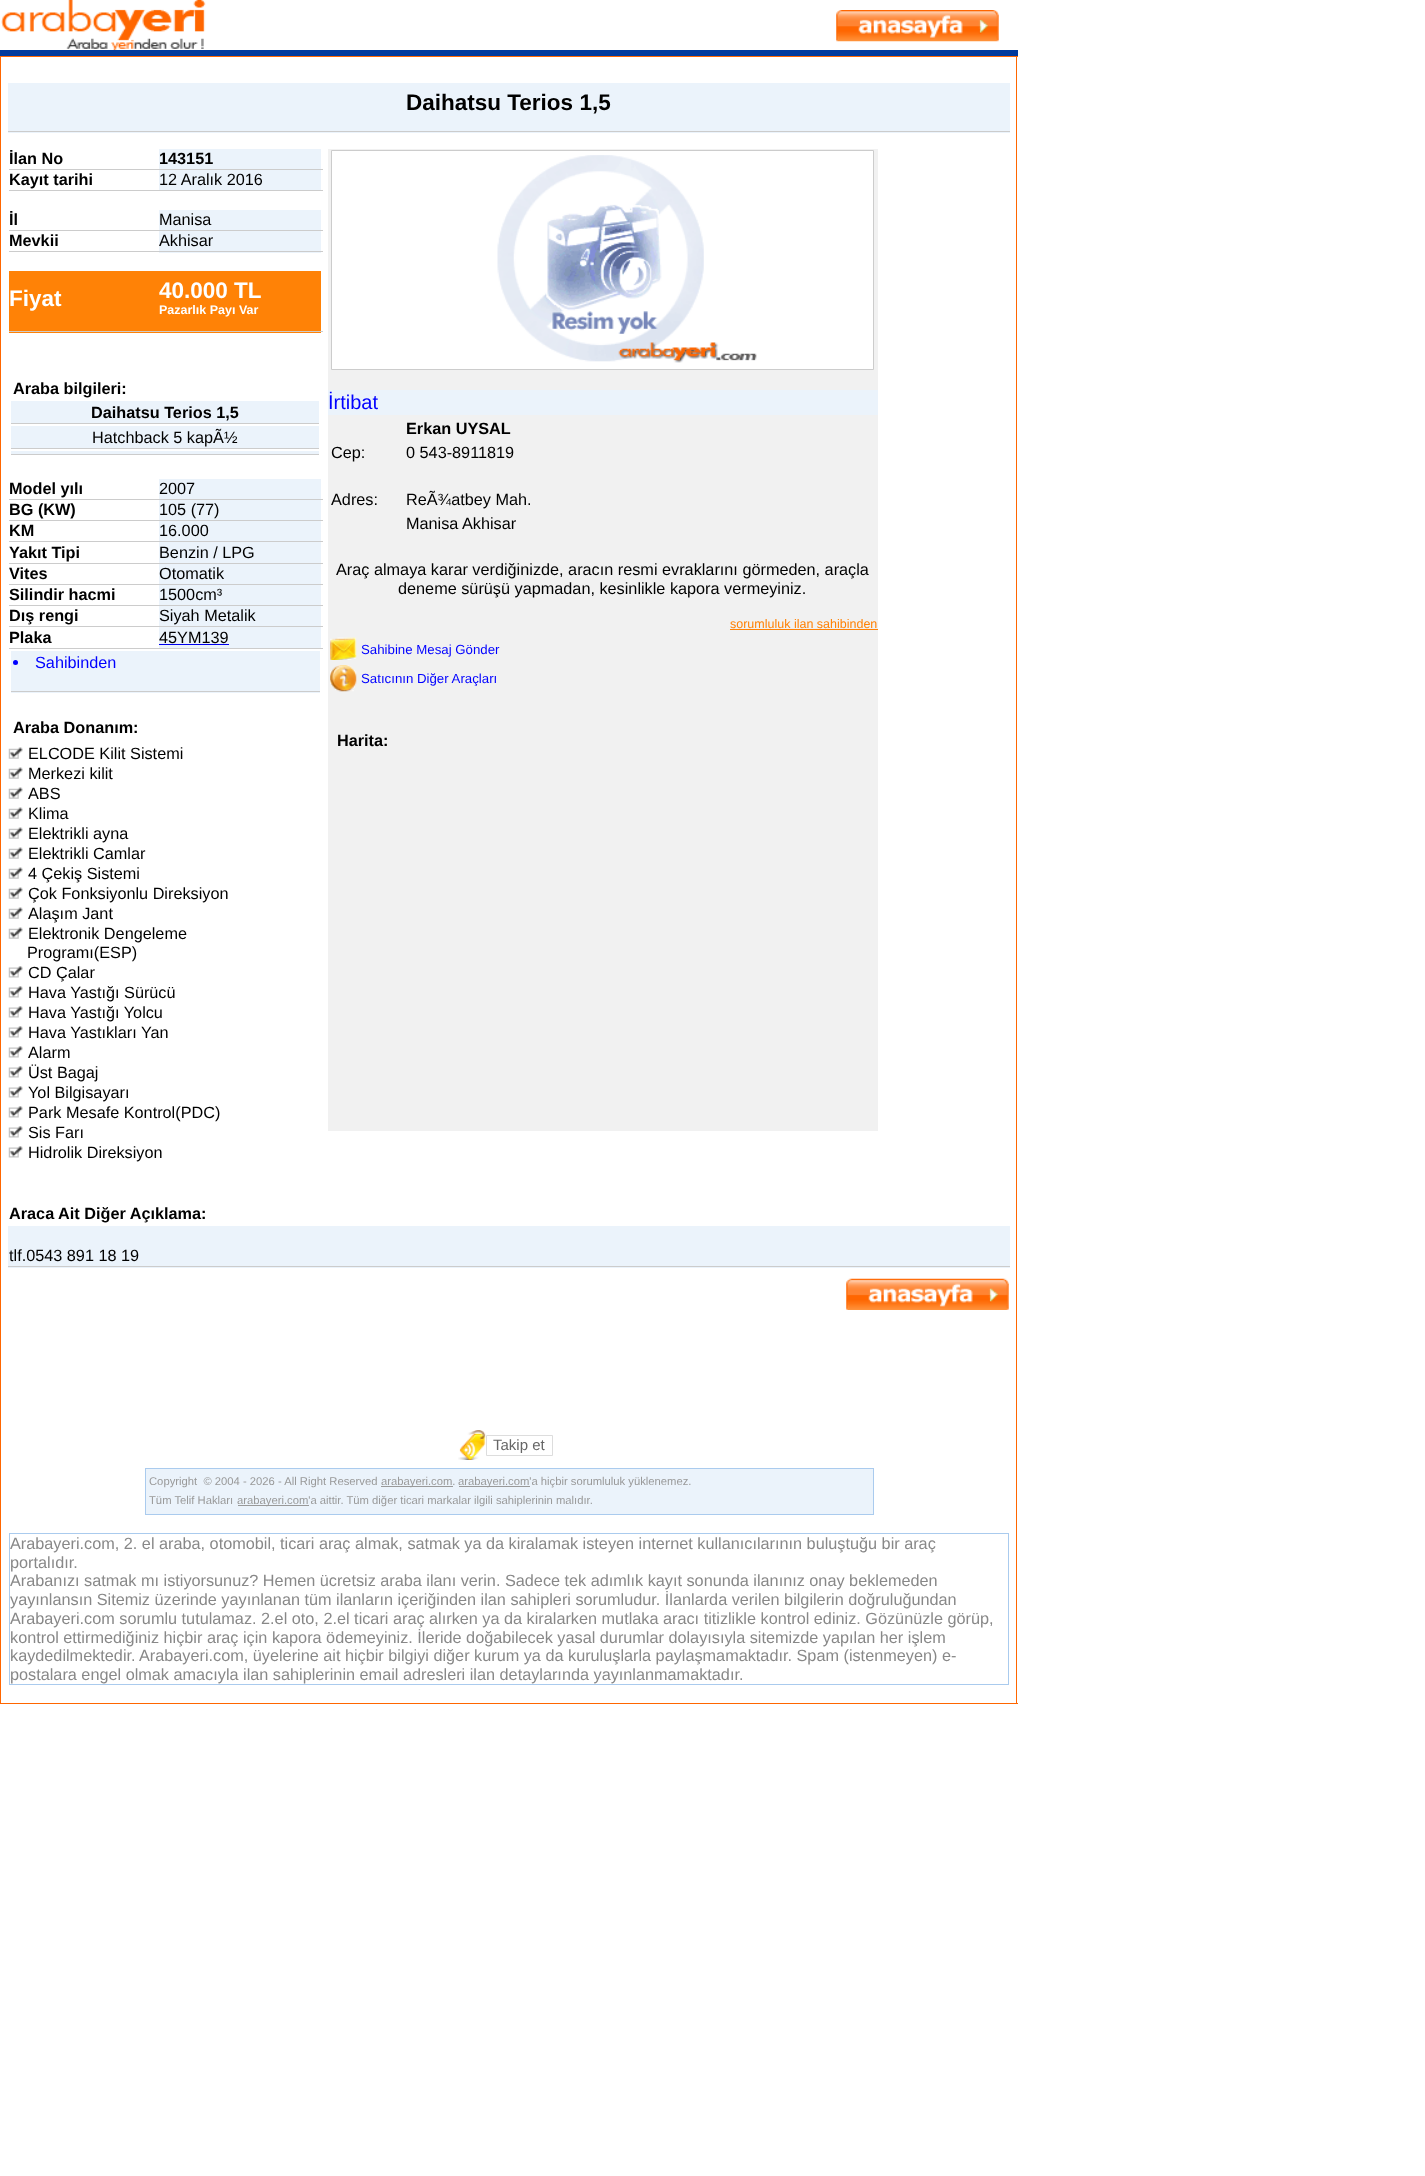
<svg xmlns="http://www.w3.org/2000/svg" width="1425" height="2176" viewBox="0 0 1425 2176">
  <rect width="100%" height="100%" fill="#fff"/>
  <image x="1" y="0" width="205" height="50" href="img/1.png"/>
  <image x="836" y="10" width="163" height="32" href="img/2.png"/>
  <path d="M0 50h1018v6H0z" fill="#003a9d"/>
  <path d="M0 56h1018v1H0z" fill="#f60"/>
  <path d="M1016 56h1v1648H1016z" fill="#f60"/>
  <path d="M0 1703h1018v1H0z" fill="#f60"/>
  <path d="M0 56h1v1648H0z" fill="#f60"/>
  <path d="M8 83h1002v50H8z" fill="#ebf3fb"/>
  <path d="M8 131h1002v1H8z" fill="#ccc"/>
  <path d="M159 149h162v20H159z" fill="#ebf3fb"/>
  <path d="M9 169h314v1H9z" fill="#ccc"/>
  <path d="M159 170h162v20H159z" fill="#ebf3fb"/>
  <path d="M9 190h314v1H9z" fill="#ccc"/>
  <path d="M159 210h162v20H159z" fill="#ebf3fb"/>
  <path d="M9 230h314v1H9z" fill="#ccc"/>
  <path d="M159 231h162v22H159z" fill="#ebf3fb"/>
  <path d="M9 251h314v1H9z" fill="#ccc"/>
  <path d="M9 271h312v62H9z" fill="#ff8206"/>
  <path d="M9 331h314v1H9z" fill="#ccc"/>
  <path d="M11 401h308v22H11z" fill="#ebf3fb"/>
  <path d="M11 423h308v1H11z" fill="#ccc"/>
  <path d="M11 426h308v22H11z" fill="#ebf3fb"/>
  <path d="M11 448h308v1H11z" fill="#ccc"/>
  <path d="M11 451h308v3H11z" fill="#ebf3fb"/>
  <path d="M11 454h308v1H11z" fill="#ccc"/>
  <path d="M159 479h162v20H159z" fill="#ebf3fb"/>
  <path d="M9 499h314v1H9z" fill="#ccc"/>
  <path d="M159 500h162v20H159z" fill="#ebf3fb"/>
  <path d="M9 520h314v1H9z" fill="#ccc"/>
  <path d="M159 521h162v42H159z" fill="#ebf3fb"/>
  <path d="M9 541h314v1H9z" fill="#ccc"/>
  <path d="M9 563h314v1H9z" fill="#ccc"/>
  <path d="M159 564h162v20H159z" fill="#ebf3fb"/>
  <path d="M9 584h314v1H9z" fill="#ccc"/>
  <path d="M159 585h162v20H159z" fill="#ebf3fb"/>
  <path d="M9 605h314v1H9z" fill="#ccc"/>
  <path d="M159 606h162v42H159z" fill="#ebf3fb"/>
  <path d="M9 626h314v1H9z" fill="#ccc"/>
  <path d="M9 648h314v1H9z" fill="#ccc"/>
  <path d="M159 644h70v1H159z" fill="#00e"/>
  <path d="M11 651h309v42H11z" fill="#ebf3fb"/>
  <path d="M11 691h309v1H11z" fill="#ccc"/>
  <circle cx="15.5" cy="662.5" r="2.5" fill="#00f"/>
  <image x="8" y="747" width="15" height="12" href="img/3.png"/>
  <image x="8" y="767" width="15" height="12" href="img/3.png"/>
  <image x="8" y="787" width="15" height="12" href="img/3.png"/>
  <image x="8" y="807" width="15" height="12" href="img/3.png"/>
  <image x="8" y="827" width="15" height="12" href="img/3.png"/>
  <image x="8" y="847" width="15" height="12" href="img/3.png"/>
  <image x="8" y="867" width="15" height="12" href="img/3.png"/>
  <image x="8" y="887" width="15" height="12" href="img/3.png"/>
  <image x="8" y="907" width="15" height="12" href="img/3.png"/>
  <image x="8" y="927" width="15" height="12" href="img/3.png"/>
  <image x="8" y="966" width="15" height="12" href="img/4.png"/>
  <image x="8" y="986" width="15" height="12" href="img/4.png"/>
  <image x="8" y="1006" width="15" height="12" href="img/4.png"/>
  <image x="8" y="1026" width="15" height="12" href="img/4.png"/>
  <image x="8" y="1046" width="15" height="12" href="img/4.png"/>
  <image x="8" y="1066" width="15" height="12" href="img/4.png"/>
  <image x="8" y="1086" width="15" height="12" href="img/4.png"/>
  <image x="8" y="1106" width="15" height="12" href="img/4.png"/>
  <image x="8" y="1126" width="15" height="12" href="img/4.png"/>
  <image x="8" y="1146" width="15" height="12" href="img/4.png"/>
  <path d="M328 149h550v982H328z" fill="#f1f1f1"/>
  <path d="M331.5 150.5h542v219H331.5z" fill="#fff" stroke="#ccc"/>
  <image x="497" y="155" width="260" height="208" href="img/5.png"/>
  <path d="M328 390h550v25H328z" fill="#ebf3fb"/>
  <path d="M730 629h148v1H730z" fill="#ff8206"/>
  <image x="330" y="637" width="27" height="23" href="img/6.png"/>
  <image x="330" y="665" width="27" height="27" href="img/7.png"/>
  <path d="M8 1226h1002v42H8z" fill="#ebf3fb"/>
  <path d="M8 1266h1002v1H8z" fill="#ccc"/>
  <image x="846" y="1278" width="163" height="32" href="img/8.png"/>
  <image x="458" y="1430" width="28" height="30" href="img/9.png"/>
  <path d="M486.5 1435.5h66v20H486.5z" fill="none" stroke="#ddd"/>
  <path d="M145 1468h729v1H145z" fill="#aacbee"/>
  <path d="M873 1468h1v47H873z" fill="#aacbee"/>
  <path d="M145 1514h729v1H145z" fill="#aacbee"/>
  <path d="M145 1468h1v47H145z" fill="#aacbee"/>
  <path d="M146 1469h727v45H146z" fill="#ebf3fb"/>
  <path d="M381 1486h72v1H381z" fill="#999"/>
  <path d="M459 1486h71v1H459z" fill="#999"/>
  <path d="M238 1505h71v1H238z" fill="#999"/>
  <path d="M9 1533h1000v1H9z" fill="#aacbee"/>
  <path d="M1008 1533h1v152H1008z" fill="#aacbee"/>
  <path d="M9 1684h1000v1H9z" fill="#aacbee"/>
  <path d="M9 1533h1v152H9z" fill="#aacbee"/>
  <text x="406" y="110" font-family="Liberation Sans" font-size="22.5" font-weight="bold" fill="#000">Daihatsu Terios 1,5</text>
  <g font-family="Liberation Sans" font-size="16.25" font-weight="bold" fill="#000">
    <text x="9" y="164">İlan No</text>
    <text x="159" y="164">143151</text>
    <text x="9" y="185">Kayıt tarihi</text>
  </g>
  <text x="159" y="185" font-family="Liberation Sans" font-size="16.25" fill="#000">12 Aralık 2016</text>
  <text x="9" y="225" font-family="Liberation Sans" font-size="16.25" font-weight="bold" fill="#000">İl</text>
  <text x="159" y="225" font-family="Liberation Sans" font-size="16.25" fill="#000">Manisa</text>
  <text x="9" y="246" font-family="Liberation Sans" font-size="16.25" font-weight="bold" fill="#000">Mevkii</text>
  <text x="159" y="246" font-family="Liberation Sans" font-size="16.25" fill="#000">Akhisar</text>
  <g font-family="Liberation Sans" font-size="22.5" font-weight="bold" fill="#fff">
    <text x="9" y="306">Fiyat</text>
    <text x="159" y="298">40.000 TL</text>
  </g>
  <text x="159" y="314" font-family="Liberation Sans" font-size="12.5" font-weight="bold" fill="#fff">Pazarlık Payı Var</text>
  <g font-family="Liberation Sans" font-size="16.25" font-weight="bold" fill="#000">
    <text x="13" y="394">Araba bilgileri:</text>
    <text x="91" y="418">Daihatsu Terios 1,5</text>
  </g>
  <text x="92" y="443" font-family="Liberation Sans" font-size="16.25" fill="#000">Hatchback 5 kapÃ½</text>
  <text x="9" y="494" font-family="Liberation Sans" font-size="16.25" font-weight="bold" fill="#000">Model yılı</text>
  <text x="159" y="494" font-family="Liberation Sans" font-size="16.25" fill="#000">2007</text>
  <text x="9" y="515" font-family="Liberation Sans" font-size="16.25" font-weight="bold" fill="#000">BG (KW)</text>
  <text x="159" y="515" font-family="Liberation Sans" font-size="16.25" fill="#000">105 (77)</text>
  <text x="9" y="536" font-family="Liberation Sans" font-size="16.25" font-weight="bold" fill="#000">KM</text>
  <text x="159" y="536" font-family="Liberation Sans" font-size="16.25" fill="#000">16.000</text>
  <text x="9" y="558" font-family="Liberation Sans" font-size="16.25" font-weight="bold" fill="#000">Yakıt Tipi</text>
  <text x="159" y="558" font-family="Liberation Sans" font-size="16.25" fill="#000">Benzin / LPG</text>
  <text x="9" y="579" font-family="Liberation Sans" font-size="16.25" font-weight="bold" fill="#000">Vites</text>
  <text x="159" y="579" font-family="Liberation Sans" font-size="16.25" fill="#000">Otomatik</text>
  <text x="9" y="600" font-family="Liberation Sans" font-size="16.25" font-weight="bold" fill="#000">Silindir hacmi</text>
  <text x="159" y="600" font-family="Liberation Sans" font-size="16.25" fill="#000">1500cm³</text>
  <text x="9" y="621" font-family="Liberation Sans" font-size="16.25" font-weight="bold" fill="#000">Dış rengi</text>
  <text x="159" y="621" font-family="Liberation Sans" font-size="16.25" fill="#000">Siyah Metalik</text>
  <text x="9" y="643" font-family="Liberation Sans" font-size="16.25" font-weight="bold" fill="#000">Plaka</text>
  <text x="159" y="643" font-family="Liberation Sans" font-size="16.25" fill="#000">45YM139</text>
  <text x="35" y="668" font-family="Liberation Sans" font-size="16.25" fill="#00f">Sahibinden</text>
  <text x="13" y="733" font-family="Liberation Sans" font-size="16.25" font-weight="bold" fill="#000">Araba Donanım:</text>
  <g font-family="Liberation Sans" font-size="16.25" fill="#000">
    <text x="28" y="759">ELCODE Kilit Sistemi</text>
    <text x="28" y="779">Merkezi kilit</text>
    <text x="28" y="799">ABS</text>
    <text x="28" y="819">Klima</text>
    <text x="28" y="839">Elektrikli ayna</text>
    <text x="28" y="859">Elektrikli Camlar</text>
    <text x="28" y="879">4 Çekiş Sistemi</text>
    <text x="28" y="899">Çok Fonksiyonlu Direksiyon</text>
    <text x="28" y="919">Alaşım Jant</text>
    <text x="28" y="939">Elektronik Dengeleme</text>
    <text x="27" y="958">Programı(ESP)</text>
    <text x="28" y="978">CD Çalar</text>
    <text x="28" y="998">Hava Yastığı Sürücü</text>
    <text x="28" y="1018">Hava Yastığı Yolcu</text>
    <text x="28" y="1038">Hava Yastıkları Yan</text>
    <text x="28" y="1058">Alarm</text>
    <text x="28" y="1078">Üst Bagaj</text>
    <text x="28" y="1098">Yol Bilgisayarı</text>
    <text x="28" y="1118">Park Mesafe Kontrol(PDC)</text>
    <text x="28" y="1138">Sis Farı</text>
    <text x="28" y="1158">Hidrolik Direksiyon</text>
  </g>
  <text x="328" y="409" font-family="Liberation Sans" font-size="20" fill="#00f">İrtibat</text>
  <text x="406" y="434" font-family="Liberation Sans" font-size="16.25" font-weight="bold" fill="#000">Erkan UYSAL</text>
  <g font-family="Liberation Sans" font-size="16.25" fill="#000">
    <text x="331" y="458">Cep:</text>
    <text x="406" y="458">0 543-8911819</text>
    <text x="331" y="505">Adres:</text>
    <text x="406" y="505">ReÃ¾atbey Mah.</text>
    <text x="406" y="529">Manisa Akhisar</text>
    <text x="336" y="575">Araç almaya karar verdiğinizde, aracın resmi evraklarını görmeden, araçla</text>
    <text x="398" y="594">deneme sürüşü yapmadan, kesinlikle kapora vermeyiniz.</text>
  </g>
  <text x="730" y="628" font-family="Liberation Sans" font-size="12.5" fill="#ff8206">sorumluluk ilan sahibinden</text>
  <g font-family="Liberation Sans" font-size="13.25" fill="#00f">
    <text x="361" y="654">Sahibine Mesaj Gönder</text>
    <text x="361" y="683">Satıcının Diğer Araçları</text>
  </g>
  <g font-family="Liberation Sans" font-size="16.25" font-weight="bold" fill="#000">
    <text x="337" y="746">Harita:</text>
    <text x="9" y="1219">Araca Ait Diğer Açıklama:</text>
  </g>
  <text x="9" y="1261" font-family="Liberation Sans" font-size="16.25" fill="#000">tlf.0543 891 18 19</text>
  <text x="493" y="1450" font-family="Liberation Sans" font-size="15" fill="#666">Takip et</text>
  <g font-family="Liberation Sans" font-size="11.25" fill="#999">
    <text x="149" y="1485" xml:space="preserve">Copyright  © 2004 - 2026 - All Right Reserved</text>
    <text x="381" y="1485">arabayeri.com.</text>
    <text x="458" y="1485">arabayeri.com'a hiçbir sorumluluk yüklenemez.</text>
    <text x="149" y="1504">Tüm Telif Hakları</text>
    <text x="237" y="1504">arabayeri.com'a aittir. Tüm diğer ticari markalar ilgili sahiplerinin malıdır.</text>
  </g>
  <g font-family="Liberation Sans" font-size="16.25" fill="#888">
    <text x="10" y="1549">Arabayeri.com, 2. el araba, otomobil, ticari araç almak, satmak ya da kiralamak isteyen internet kullanıcılarının buluştuğu bir araç</text>
    <text x="10" y="1568">portalıdır.</text>
    <text x="10" y="1586">Arabanızı satmak mı istiyorsunuz? Hemen ücretsiz araba ilanı verin. Sadece tek adımlık kayıt sonunda ilanınız onay beklemeden</text>
    <text x="10" y="1605">yayınlansın Sitemiz üzerinde yayınlanan tüm ilanların içeriğinden ilan sahipleri sorumludur. İlanlarda verilen bilgilerin doğruluğundan</text>
    <text x="10" y="1624">Arabayeri.com sorumlu tutulamaz. 2.el oto, 2.el ticari araç alırken ya da kiralarken mutlaka aracı titizlikle kontrol ediniz. Gözünüzle görüp,</text>
    <text x="10" y="1643">kontrol ettirmediğiniz hiçbir araç için kapora ödemeyiniz. İleride doğabilecek yasal durumlar dolayısıyla sitemizde yapılan her işlem</text>
    <text x="10" y="1661">kaydedilmektedir.</text>
    <text x="139" y="1661">Arabayeri.com, üyelerine ait hiçbir bilgiyi diğer kurum ya da kuruluşlarla paylaşmamaktadır. Spam (istenmeyen) e-</text>
    <text x="10" y="1680">postalara engel olmak amacıyla ilan sahiplerinin email adresleri ilan detaylarında yayınlanmamaktadır.</text>
  </g>
</svg>
